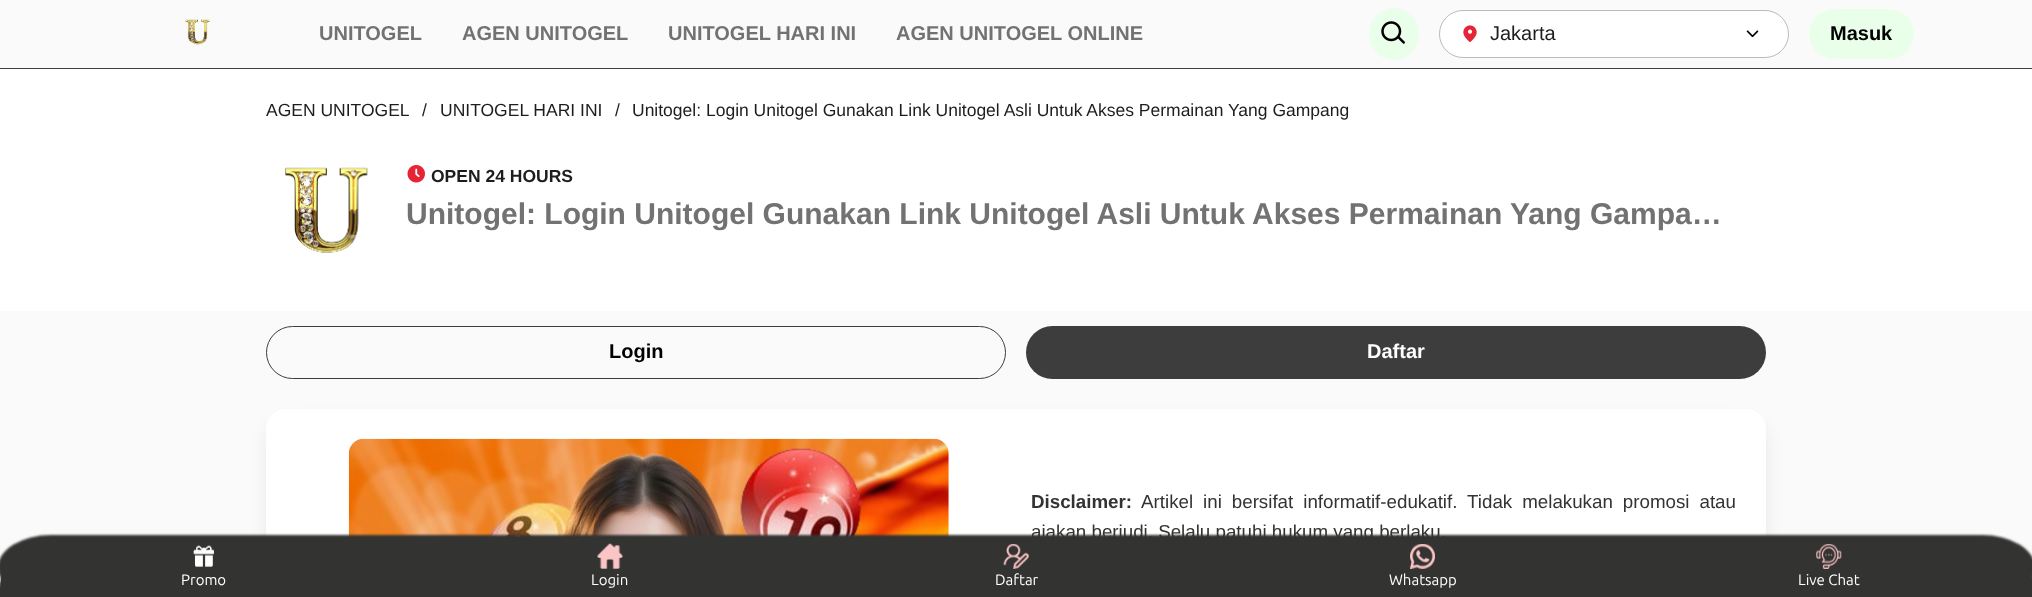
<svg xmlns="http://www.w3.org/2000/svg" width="2032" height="597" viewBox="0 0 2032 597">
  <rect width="100%" height="100%" fill="#fff"/>
  <path d="M0 0h2032v68H0z" fill="#fafafa"/>
  <path d="M0 68h2032v1H0z" fill="#3d3d3d"/>
  <image x="185" y="19" width="25" height="26" href="img/1.png"/>
  <rect x="1369" y="8" width="50" height="52" rx="25" fill="#eaffea"/>
  <image x="1381" y="21" width="24" height="23" href="img/2.png"/>
  <rect x="1439.5" y="10.5" width="349" height="47" rx="23.5" fill="#fff" stroke="#bbb"/>
  <image x="1463" y="25" width="14" height="17" href="img/3.png"/>
  <image x="1746" y="30" width="13" height="8" href="img/4.png"/>
  <rect x="1809" y="9" width="105" height="50" rx="25" fill="#eaffea"/>
  <image x="285" y="167" width="83" height="86" href="img/5.png"/>
  <image x="407" y="165" width="18" height="18" href="img/6.png"/>
  <path d="M0 311h2032v277H0z" fill="#fafafa"/>
  <rect x="266.5" y="326.5" width="739" height="52" rx="26" fill="none" stroke="#3d3d3d"/>
  <rect x="1026" y="326" width="740" height="53" rx="26.5" fill="#3d3d3d"/>
  <rect x="270" y="425" width="1493" height="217" rx="16" fill="#0000001a" filter="blur(9.5px)"/>
  <rect x="266" y="409" width="1500" height="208" rx="20" fill="#fff"/>
  <image x="348" y="438" width="601" height="100" href="img/7.png"/>
  <rect x="-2" y="535" width="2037" height="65" rx="53" fill="#333332" filter="blur(1px)"/>
  <g font-family="Liberation Sans" font-size="20" font-weight="bold" fill="#727272">
    <text x="319" y="40">UNITOGEL</text>
    <text x="462" y="40">AGEN UNITOGEL</text>
    <text x="668" y="40">UNITOGEL HARI INI</text>
    <text x="896" y="40">AGEN UNITOGEL ONLINE</text>
  </g>
  <text x="1490" y="40" font-family="Liberation Sans" font-size="20" fill="#1c1d1d">Jakarta</text>
  <text x="1830" y="40" font-family="Liberation Sans" font-size="20" font-weight="bold" fill="#000">Masuk</text>
  <g font-family="Liberation Sans" font-size="17.5" fill="#1c1d1d">
    <text x="266" y="116">AGEN UNITOGEL</text>
    <text x="422" y="116">/</text>
    <text x="440" y="116">UNITOGEL HARI INI</text>
    <text x="615" y="116">/</text>
    <text x="632" y="116">Unitogel: Login Unitogel Gunakan Link Unitogel Asli Untuk Akses Permainan Yang Gampang</text>
  </g>
  <text x="431" y="182" font-family="Liberation Sans" font-size="17.5" font-weight="bold" fill="#1c1d1d">OPEN 24 HOURS</text>
  <text x="406" y="224" font-family="Liberation Sans" font-size="30" font-weight="bold" fill="#727272">Unitogel: Login Unitogel Gunakan Link Unitogel Asli Untuk Akses Permainan Yang Gampa…</text>
  <text x="609" y="358" font-family="Liberation Sans" font-size="20" font-weight="bold" fill="#000">Login</text>
  <text x="1367" y="358" font-family="Liberation Sans" font-size="20" font-weight="bold" fill="#fff">Daftar</text>
  <text x="1031" y="508" font-family="Liberation Sans" font-size="18.75" font-weight="bold" fill="#333">Disclaimer:</text>
  <g font-family="Liberation Sans" font-size="18.75" fill="#333">
    <text x="1141" y="508" word-spacing="4.75">Artikel ini bersifat informatif-edukatif. Tidak melakukan promosi atau</text>
    <text x="1031" y="538">ajakan berjudi. Selalu patuhi hukum yang berlaku.</text>
  </g>
  <path d="M50 538H1983C2010.5 538 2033 560.5 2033 588V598H0V588C0 560.5 22.5 538 50 538Z" fill="#333332"/>
  <image x="193" y="545" width="21" height="22" href="img/8.png"/>
  <text x="181" y="585" font-family="Ubuntu" font-size="15" fill="#fff">Promo</text>
  <image x="597" y="543" width="26" height="26" href="img/9.png"/>
  <text x="591" y="585" font-family="Ubuntu" font-size="15" fill="#fff">Login</text>
  <image x="1003" y="544" width="26" height="25" href="img/10.png"/>
  <text x="995" y="585" font-family="Ubuntu" font-size="15" fill="#fff">Daftar</text>
  <image x="1410" y="544" width="25" height="25" href="img/11.png"/>
  <text x="1389" y="585" font-family="Ubuntu" font-size="15" fill="#fff">Whatsapp</text>
  <image x="1816" y="544" width="26" height="25" href="img/12.png"/>
  <text x="1798" y="585" font-family="Ubuntu" font-size="15" fill="#fff">Live Chat</text>
</svg>
